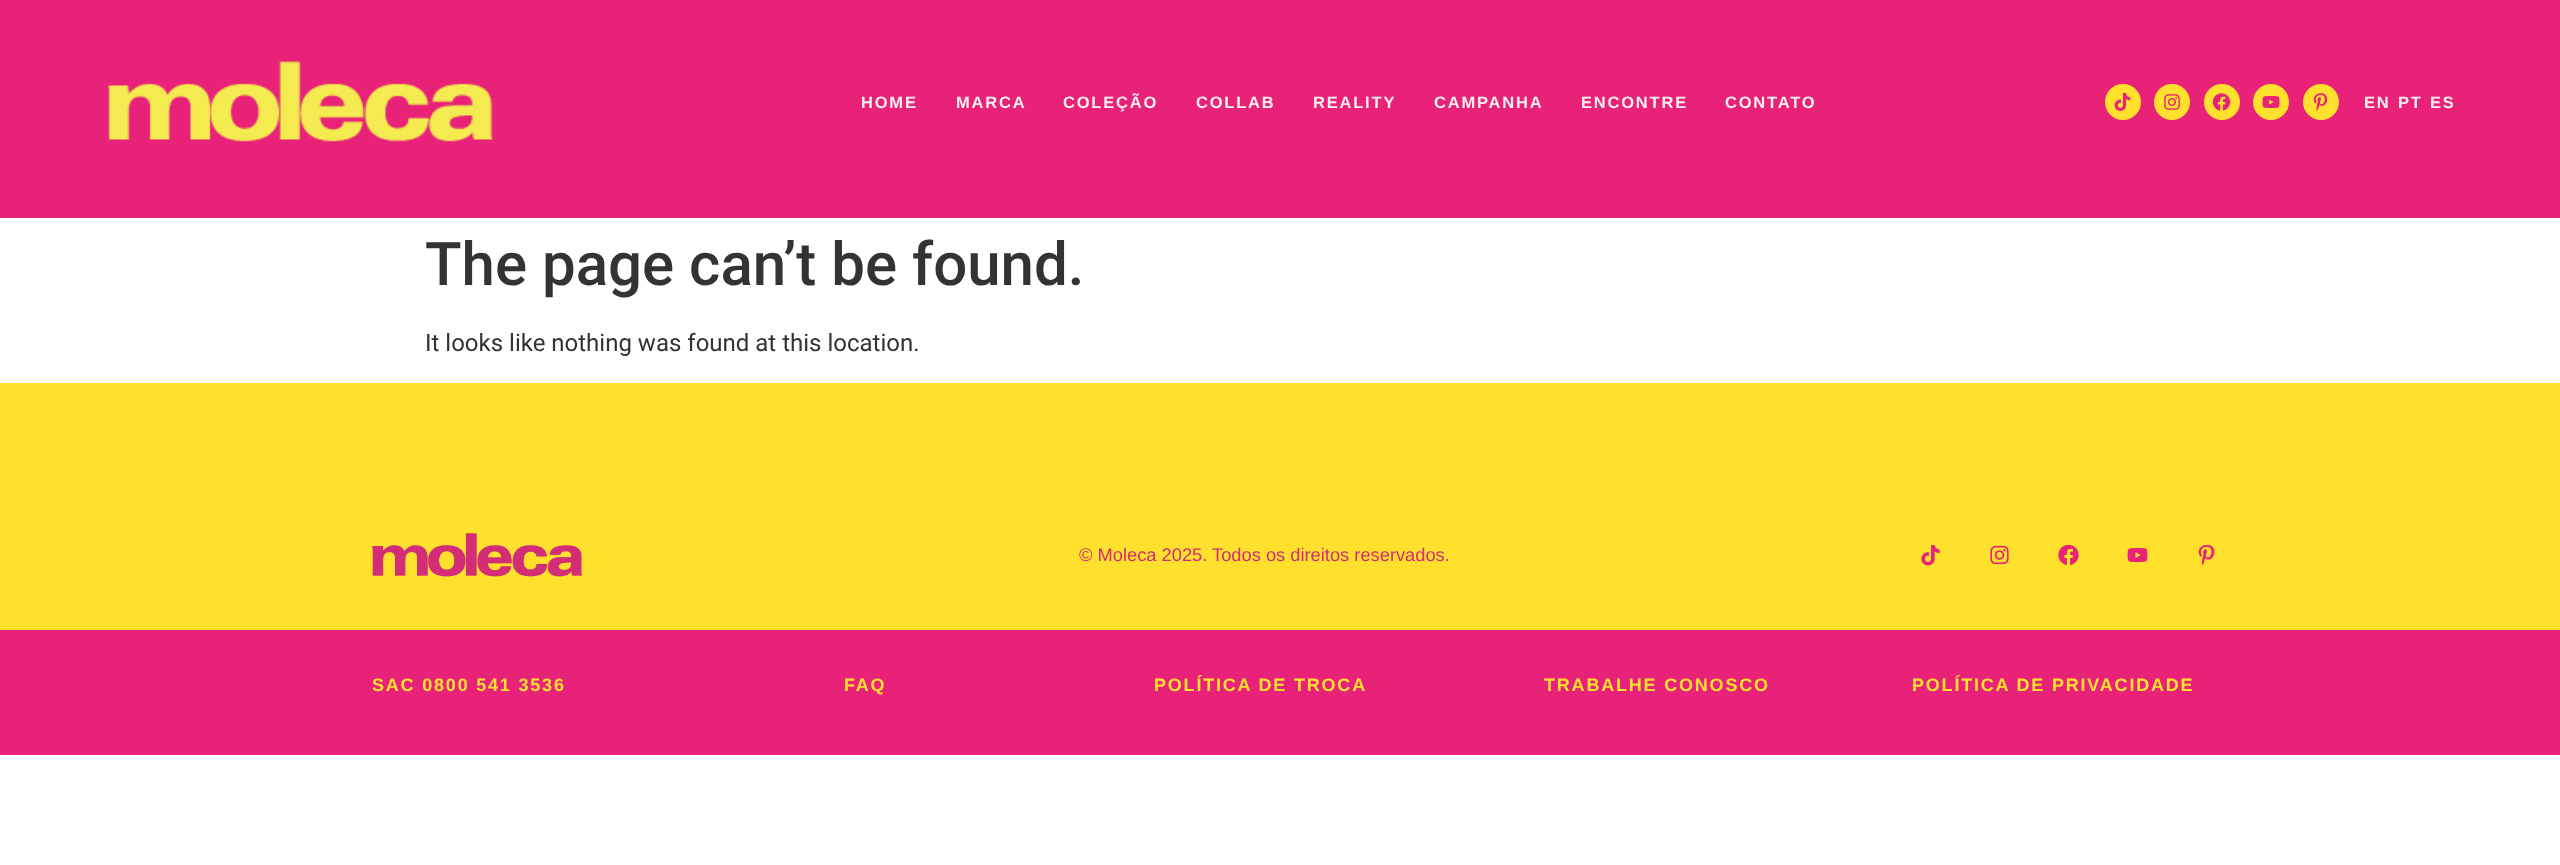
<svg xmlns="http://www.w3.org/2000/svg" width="2560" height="865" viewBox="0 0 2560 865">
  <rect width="100%" height="100%" fill="#fff"/>
  <path d="M0 0h2560v218H0z" fill="#e72278"/>
  <image x="107" y="61" width="386" height="81" href="img/1.png"/>
  <circle cx="2123" cy="102" r="18" fill="#ffe02c"/>
  <image x="2114" y="93" width="17" height="18" href="img/2.png"/>
  <circle cx="2172" cy="102" r="18" fill="#ffe02c"/>
  <image x="2164" y="94" width="16" height="16" href="img/3.png"/>
  <circle cx="2222" cy="102" r="18" fill="#ffe02c"/>
  <image x="2213" y="93" width="18" height="18" href="img/4.png"/>
  <circle cx="2271" cy="102" r="18" fill="#ffe02c"/>
  <image x="2262" y="96" width="18" height="12" href="img/5.png"/>
  <circle cx="2321" cy="102" r="18" fill="#ffe02c"/>
  <image x="2313" y="93" width="15" height="18" href="img/6.png"/>
  <path d="M0 383h2560v247H0z" fill="#ffe02c"/>
  <image x="372" y="533" width="210" height="44" href="img/7.png"/>
  <image x="1921" y="545" width="19" height="21" href="img/8.png"/>
  <image x="1990" y="545" width="19" height="20" href="img/9.png"/>
  <image x="2058" y="545" width="21" height="20" href="img/10.png"/>
  <image x="2127" y="548" width="21" height="14" href="img/11.png"/>
  <image x="2198" y="545" width="17" height="21" href="img/12.png"/>
  <path d="M0 630h2560v125H0z" fill="#e72278"/>
  <g font-family="Liberation Sans" font-size="16.5" font-weight="bold" letter-spacing="1.8" fill="#f9efed">
    <text x="861" y="108">HOME</text>
    <text x="956" y="108">MARCA</text>
    <text x="1063" y="108">COLEÇÃO</text>
    <text x="1196" y="108">COLLAB</text>
    <text x="1313" y="108">REALITY</text>
    <text x="1434" y="108">CAMPANHA</text>
    <text x="1581" y="108">ENCONTRE</text>
    <text x="1725" y="108">CONTATO</text>
    <text x="2364" y="108">EN</text>
    <text x="2398" y="108">PT</text>
    <text x="2430" y="108">ES</text>
  </g>
  <text x="425" y="285" font-family="Roboto" font-size="60" font-weight="500" fill="#333">The page can’t be found.</text>
  <text x="425" y="351" font-family="Roboto" font-size="24" fill="#333">It looks like nothing was found at this location.</text>
  <text x="1079" y="561" font-family="Liberation Sans" font-size="18.3" fill="#d22d76">© Moleca 2025. Todos os direitos reservados.</text>
  <g font-family="Liberation Sans" font-size="18" font-weight="bold" letter-spacing="1.8" fill="#ffe02c">
    <text x="372" y="691">SAC 0800 541 3536</text>
    <text x="844" y="691">FAQ</text>
    <text x="1154" y="691">POLÍTICA DE TROCA</text>
    <text x="1544" y="691">TRABALHE CONOSCO</text>
    <text x="1912" y="691">POLÍTICA DE PRIVACIDADE</text>
  </g>
</svg>
